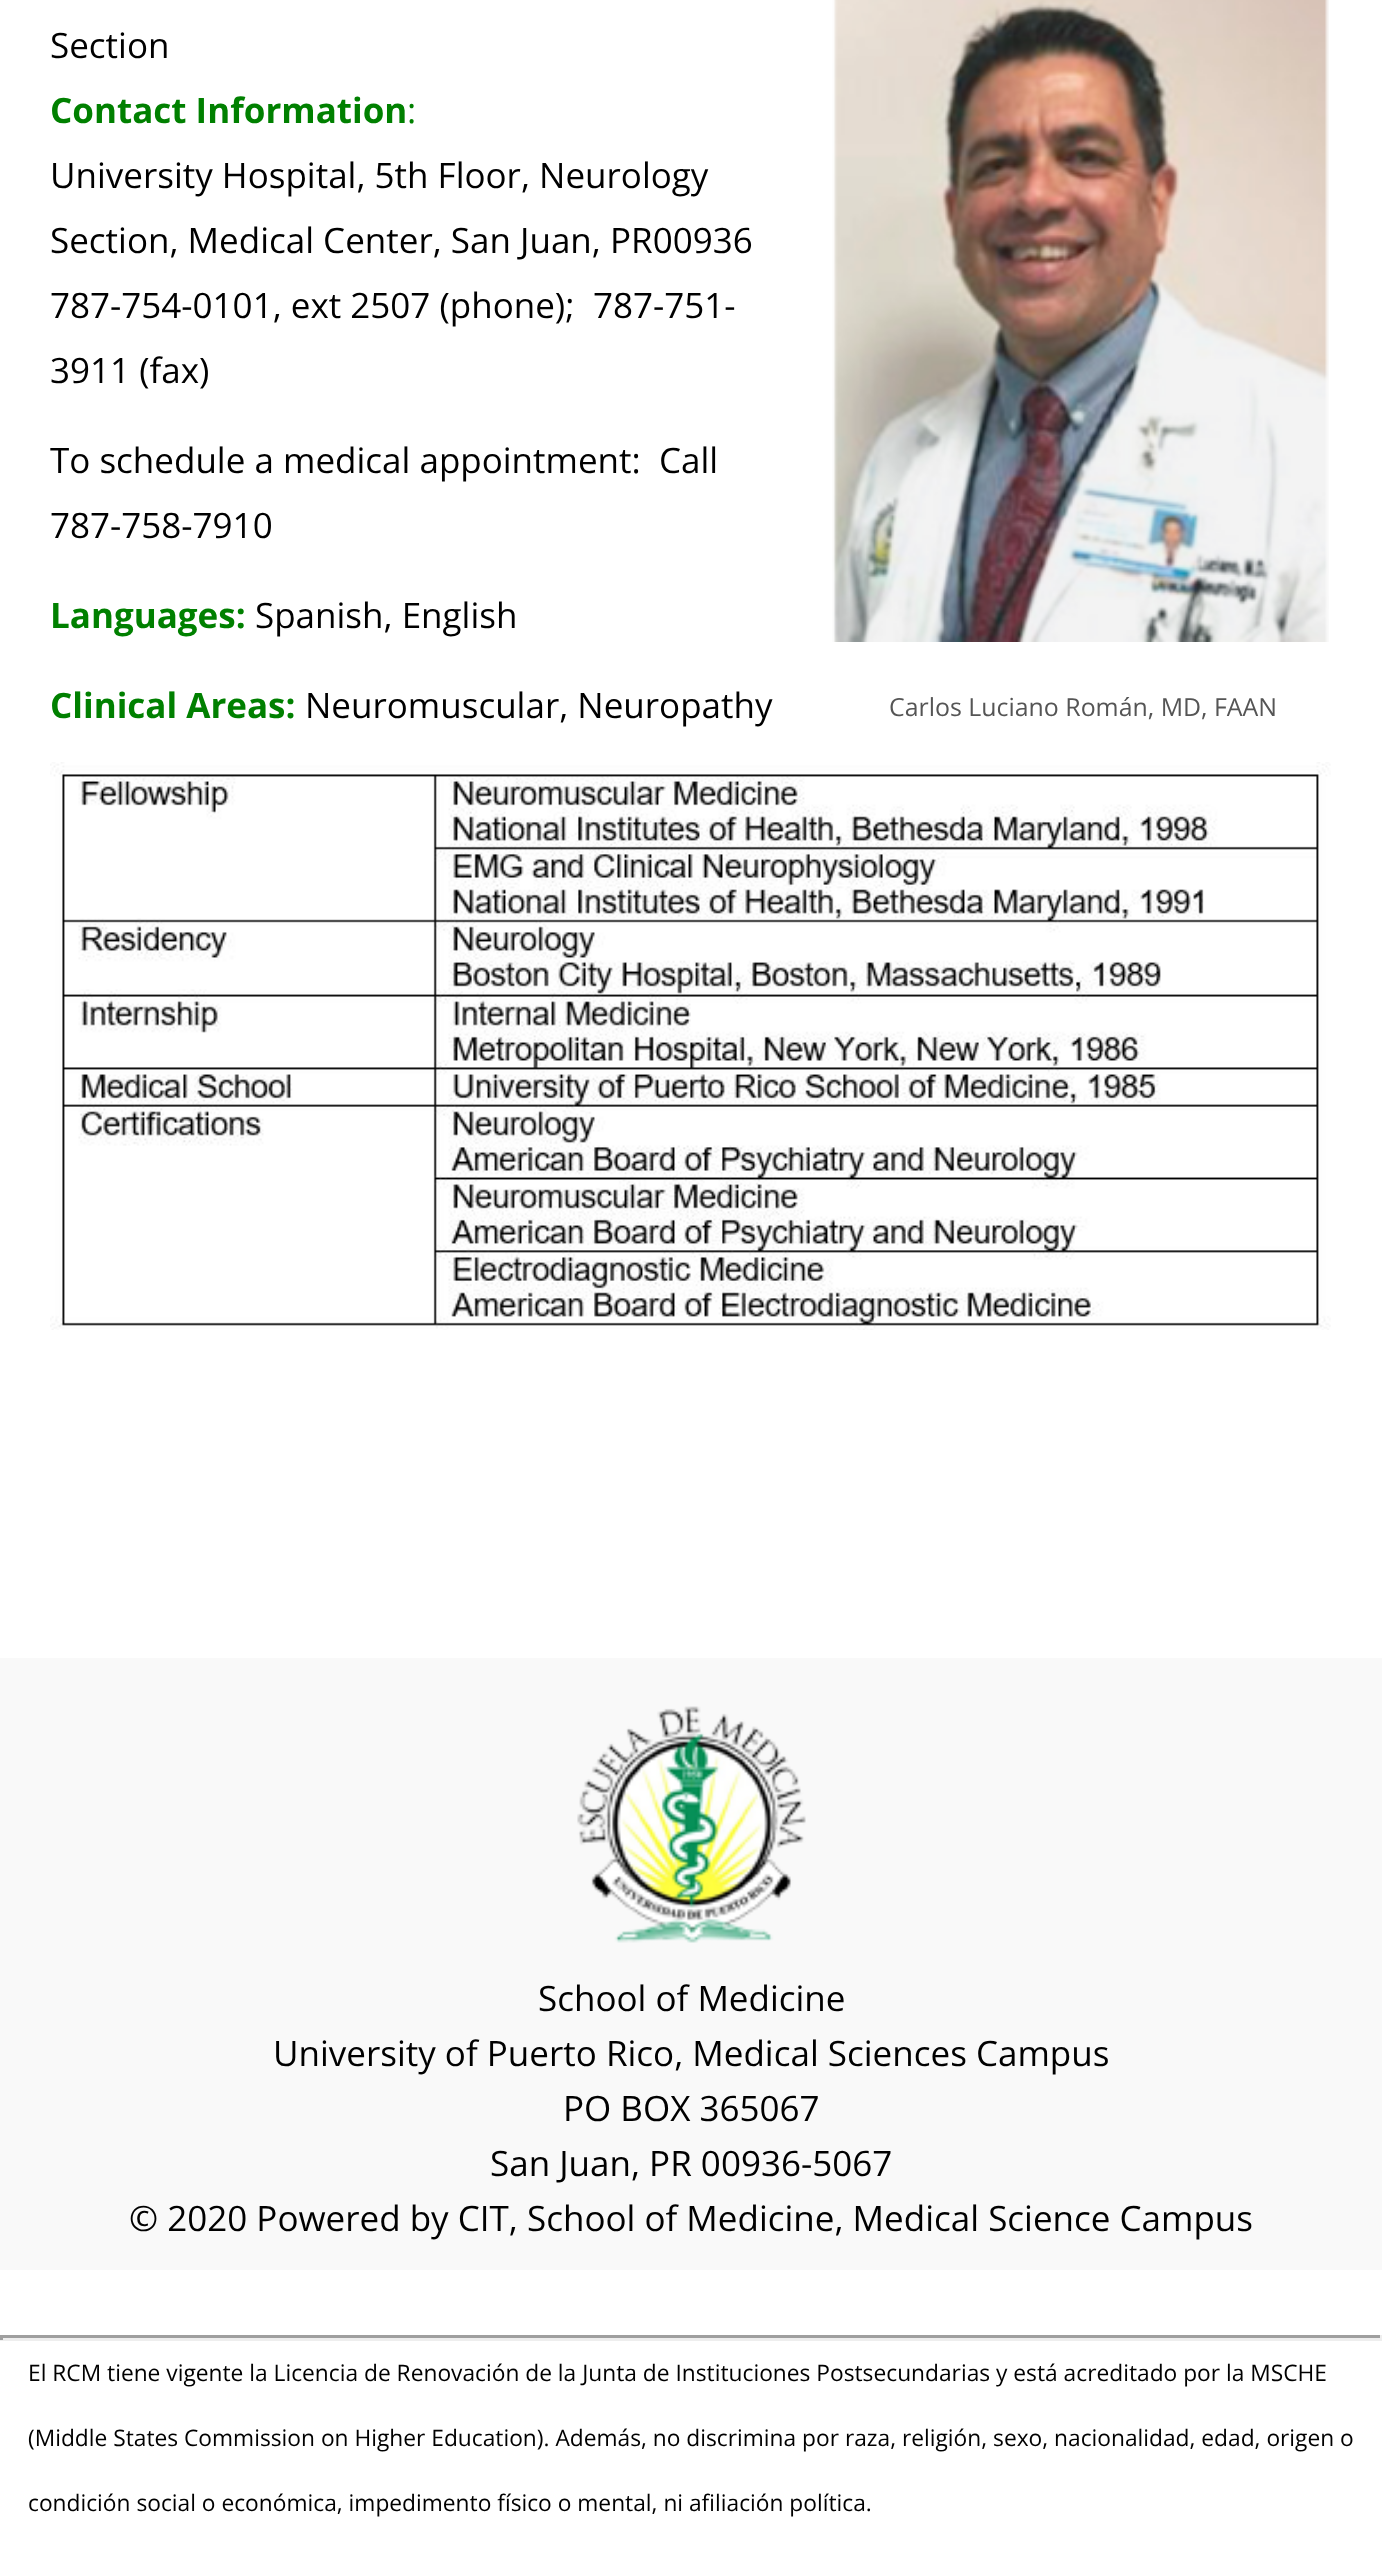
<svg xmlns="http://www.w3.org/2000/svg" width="1382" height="2560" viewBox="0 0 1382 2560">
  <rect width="100%" height="100%" fill="#fff"/>
  <image x="832" y="0" width="497" height="642" href="img/1.png"/>
  <image x="50" y="762" width="1281" height="568" href="img/2.png"/>
  <path d="M0 1658h1382v612H0z" fill="#f9f9f9"/>
  <image x="577" y="1706" width="229" height="237" href="img/3.png"/>
  <path d="M0 2335h1382v3H0z" fill="#9f9f9f"/>
  <path d="M1380 2335h2v5H1380z" fill="#eee"/>
  <path d="M0 2338h1382v3H0z" fill="#eee"/>
  <path d="M0 2335h3v5H0z" fill="#9f9f9f"/>
  <text x="50" y="58" font-family="Open Sans" font-size="35" fill="#000">Section</text>
  <text x="50" y="123" font-family="Open Sans" font-size="35" font-weight="bold" fill="#008000">Contact Information</text>
  <text x="407" y="123" font-family="Open Sans" font-size="35" fill="#008000">:</text>
  <g font-family="Open Sans" font-size="35" fill="#000">
    <text x="50" y="188">University Hospital, 5th Floor, Neurology</text>
    <text x="50" y="253">Section, Medical Center, San Juan, PR00936</text>
    <text x="50" y="318">787-754-0101, ext 2507 (phone);</text>
    <text x="593" y="318">787-751-</text>
    <text x="50" y="383">3911 (fax)</text>
    <text x="50" y="473" xml:space="preserve">To schedule a medical appointment:  Call</text>
    <text x="50" y="538">787-758-7910</text>
  </g>
  <text x="50" y="628" font-family="Open Sans" font-size="35" font-weight="bold" fill="#008000">Languages:</text>
  <text x="255" y="628" font-family="Open Sans" font-size="35" fill="#000">Spanish, English</text>
  <text x="50" y="718" font-family="Open Sans" font-size="35" font-weight="bold" fill="#008000">Clinical Areas:</text>
  <text x="305" y="718" font-family="Open Sans" font-size="35" fill="#000">Neuromuscular, Neuropathy</text>
  <text x="889" y="716" font-family="Open Sans" font-size="24.9" fill="#555">Carlos Luciano Román, MD, FAAN</text>
  <g font-family="Open Sans" font-size="35" fill="#000">
    <text x="538" y="2011">School of Medicine</text>
    <text x="273" y="2066">University of Puerto Rico, Medical Sciences Campus</text>
    <text x="563" y="2121">PO BOX 365067</text>
    <text x="490" y="2176">San Juan, PR 00936-5067</text>
    <text x="129" y="2231">© 2020 Powered by CIT, School of Medicine, Medical Science Campus</text>
  </g>
  <g font-family="Open Sans" font-size="22.75" fill="#000">
    <text x="28" y="2381">El RCM tiene vigente la Licencia de Renovación de la Junta de Instituciones Postsecundarias y está acreditado por la MSCHE</text>
    <text x="28" y="2446">(Middle States Commission on Higher Education). Además, no discrimina por raza, religión, sexo, nacionalidad, edad, origen o</text>
    <text x="28" y="2511">condición social o económica, impedimento físico o mental, ni afiliación política.</text>
  </g>
</svg>
